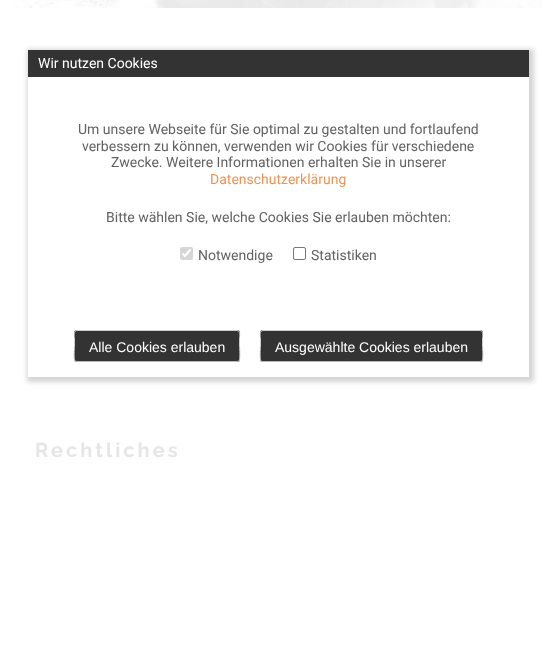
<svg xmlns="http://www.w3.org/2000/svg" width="557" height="652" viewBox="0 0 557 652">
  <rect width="100%" height="100%" fill="#fff"/>
  <path d="M27 49h507v333H27z" fill="#0000002b" filter="blur(2.5px)"/>
  <path d="M28 77h501v300H28z" fill="#fff"/>
  <path d="M28 50h501v27H28z" fill="#333"/>
  <rect x="180" y="247" width="13" height="13" rx="2" fill="#d6d6d6"/>
  <path d="M182.5 253.5L185 256L190.5 249.5" fill="none" stroke="#fff" stroke-width="2.1"/>
  <rect x="293.5" y="247.5" width="12" height="12" rx="1.5" fill="none" stroke="#767676"/>
  <rect x="74" y="330" width="166" height="32" rx="3" fill="#333"/>
  <path d="M239 361L237 361.5H77L75 361" fill="none" stroke="#bbb"/>
  <path d="M75 361C73.5 359 74.5 348.5 74.5 346V337.5C74.5 335.5 73.5 330.5 77 330.5H237C240.5 330.5 239.5 335.5 239.5 337.5V346C239.5 348.5 240.5 359 239 361" fill="none" stroke="#ccc"/>
  <rect x="260" y="330" width="223" height="32" rx="3" fill="#333"/>
  <path d="M482 361L480 361.5H262L261 361" fill="none" stroke="#bbb"/>
  <path d="M261 361C259.5 359 260.5 348.5 260.5 346V337.5C260.5 335.5 259.5 330.5 263 330.5H480C483.5 330.5 482.5 335.5 482.5 337.5V346C482.5 348.5 483.5 359 482 361" fill="none" stroke="#ccc"/>
  <image x="15" y="0" width="527" height="8" href="img/1.png"/>
  <text x="38" y="68" font-family="Roboto" font-size="14" fill="#fff">Wir nutzen Cookies</text>
  <g font-family="Roboto" font-size="14" fill="#626262">
    <text x="78" y="134">Um unsere Webseite für Sie optimal zu gestalten und fortlaufend</text>
    <text x="82" y="151">verbessern zu können, verwenden wir Cookies für verschiedene</text>
    <text x="111" y="167">Zwecke. Weitere Informationen erhalten Sie in unserer</text>
  </g>
  <text x="210" y="184" font-family="Roboto" font-size="14" fill="#ea9556">Datenschutzerklärung</text>
  <g font-family="Roboto" font-size="14" fill="#626262">
    <text x="106" y="222">Bitte wählen Sie, welche Cookies Sie erlauben möchten:</text>
    <text x="198" y="260">Notwendige</text>
    <text x="311" y="260">Statistiken</text>
  </g>
  <g font-family="Liberation Sans" font-size="14" fill="#fff">
    <text x="89" y="352">Alle Cookies erlauben</text>
    <text x="275" y="352">Ausgewählte Cookies erlauben</text>
  </g>
  <text x="35" y="457" font-family="Raleway" font-size="20" font-weight="bold" letter-spacing="3" fill="#e6e6e6">Rechtliches</text>
</svg>
